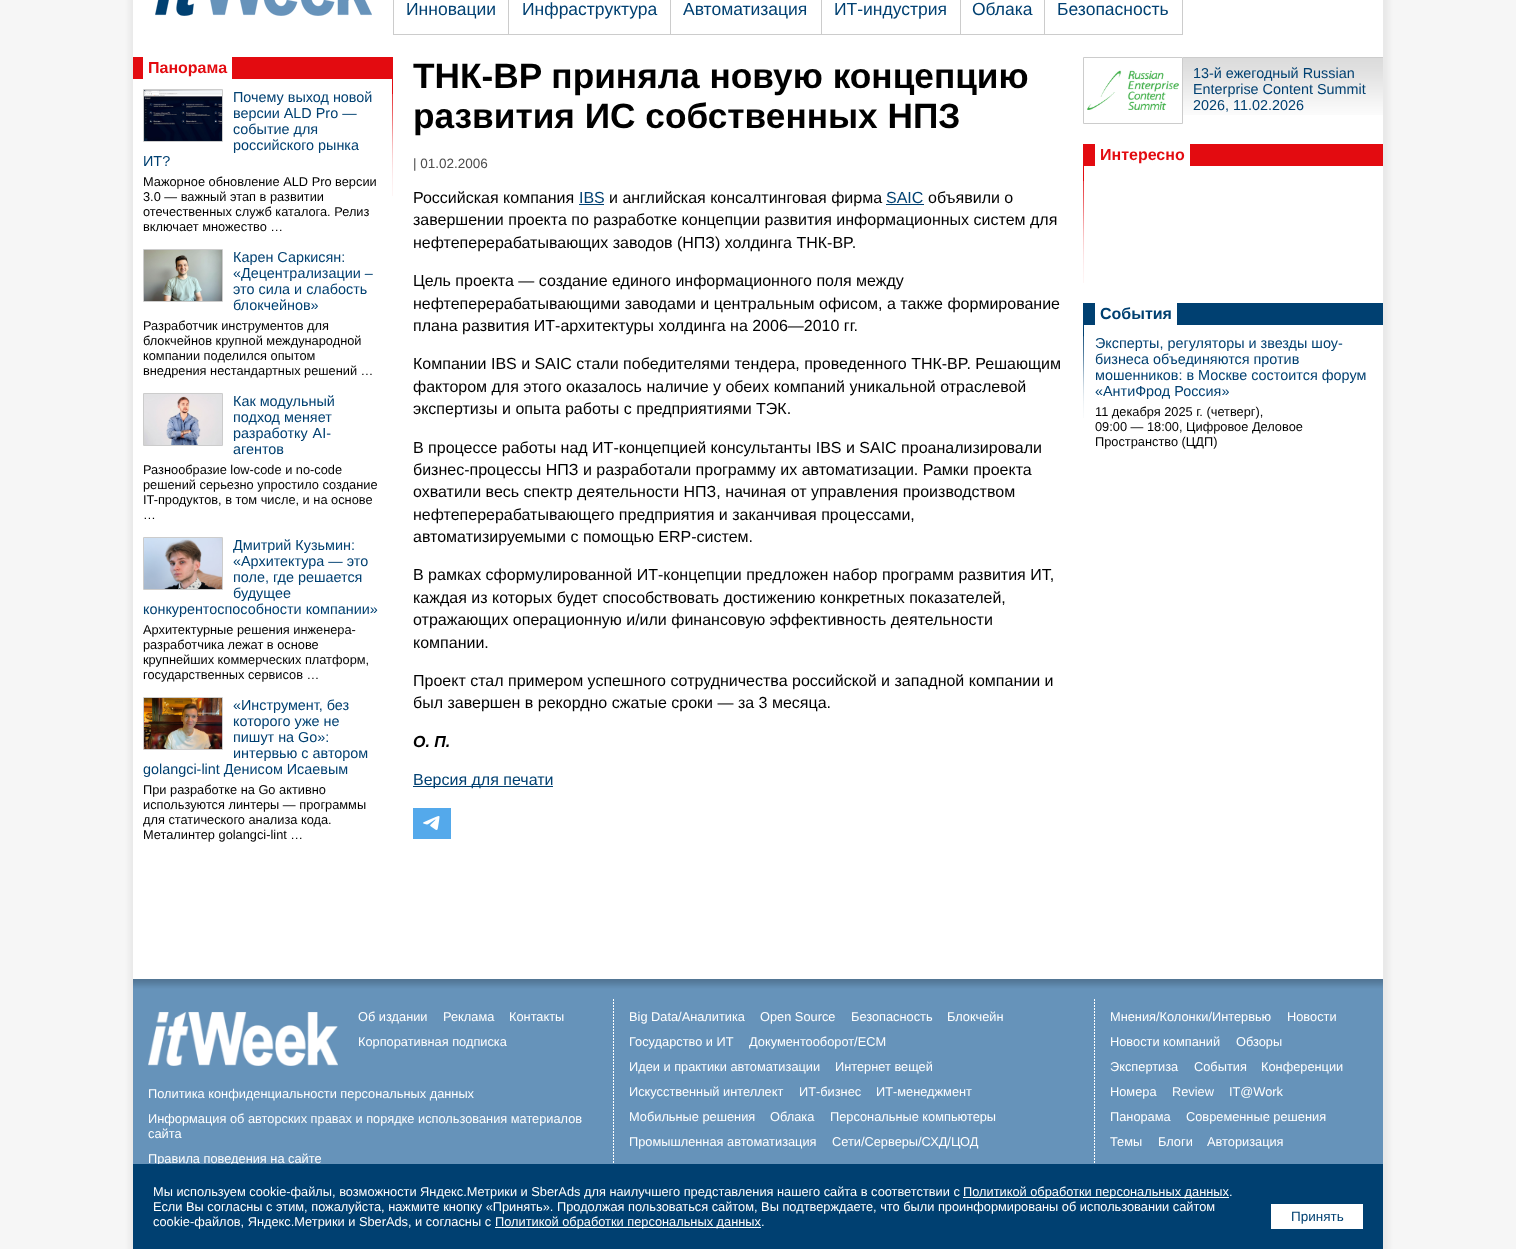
<svg xmlns="http://www.w3.org/2000/svg" width="1516" height="1249" viewBox="0 0 1516 1249">
  <rect width="100%" height="100%" fill="#fff"/>
  <image x="0" y="0" width="1516" height="1249" href="img/1.png"/>
  <path d="M133 0h2v979H133z" fill="#fff"/>
  <image x="155" y="0" width="217" height="16" href="img/2.png"/>
  <path d="M1182 0h1v35H1182z" fill="#ccc"/>
  <path d="M1044 34h139v1H1044z" fill="#ccc"/>
  <path d="M1044 0h1v35H1044z" fill="#ccc"/>
  <path d="M960 34h85v1H960z" fill="#ccc"/>
  <path d="M960 0h1v35H960z" fill="#ccc"/>
  <path d="M821 34h140v1H821z" fill="#ccc"/>
  <path d="M821 0h1v35H821z" fill="#ccc"/>
  <path d="M670 34h152v1H670z" fill="#ccc"/>
  <path d="M670 0h1v35H670z" fill="#ccc"/>
  <path d="M508 34h163v1H508z" fill="#ccc"/>
  <path d="M508 0h1v35H508z" fill="#ccc"/>
  <path d="M393 34h116v1H393z" fill="#ccc"/>
  <path d="M393 0h1v35H393z" fill="#ccc"/>
  <path d="M133 57h260v22H133z" fill="#e30b10"/>
  <path d="M143 57h89v22H143z" fill="#fff"/>
  <path d="M143.5 89.5h79v52H143.5z" fill="none" stroke="#ccc"/>
  <image x="144" y="90" width="78" height="51" href="img/3.png"/>
  <path d="M143.5 249.5h79v52H143.5z" fill="none" stroke="#ccc"/>
  <image x="144" y="250" width="78" height="51" href="img/4.png"/>
  <path d="M143.5 393.5h79v52H143.5z" fill="none" stroke="#ccc"/>
  <image x="144" y="394" width="78" height="51" href="img/5.png"/>
  <path d="M143.5 537.5h79v52H143.5z" fill="none" stroke="#ccc"/>
  <image x="144" y="538" width="78" height="51" href="img/6.png"/>
  <path d="M143.5 697.5h79v52H143.5z" fill="none" stroke="#ccc"/>
  <image x="144" y="698" width="78" height="51" href="img/7.png"/>
  <image x="392" y="79" width="1" height="117" href="img/8.png"/>
  <path d="M579 204h25v1H579z" fill="#004071"/>
  <path d="M886 204h38v1H886z" fill="#004071"/>
  <path d="M413 786h140v1H413z" fill="#004071"/>
  <image x="413" y="808" width="38" height="31" href="img/9.png"/>
  <image x="1183" y="58" width="200" height="57" href="img/10.png"/>
  <path d="M1083.5 57.5h99v66H1083.5z" fill="none" stroke="#ccc"/>
  <image x="1084" y="58" width="98" height="57" href="img/11.png"/>
  <path d="M1183 57h200v1H1183z" fill="#ccc"/>
  <path d="M1083 144h300v22H1083z" fill="#e30b10"/>
  <path d="M1095 144h95v22H1095z" fill="#fff"/>
  <image x="1083" y="166" width="1" height="117" href="img/8.png"/>
  <path d="M1083 303h300v22H1083z" fill="#004071"/>
  <path d="M1095 303h82v22H1095z" fill="#fff"/>
  <image x="1083" y="325" width="1" height="93" href="img/12.png"/>
  <image x="133" y="979" width="1250" height="185" href="img/13.png"/>
  <image x="148" y="1012" width="190" height="54" href="img/14.png"/>
  <image x="613" y="999" width="1" height="164" href="img/15.png"/>
  <image x="1094" y="999" width="1" height="164" href="img/15.png"/>
  <g font-family="Liberation Sans" font-size="17.5" fill="#004071">
    <text x="406" y="15">Инновации</text>
    <text x="522" y="15">Инфраструктура</text>
    <text x="683" y="15">Автоматизация</text>
    <text x="834" y="15">ИТ-индустрия</text>
    <text x="972" y="15">Облака</text>
    <text x="1057" y="15">Безопасность</text>
  </g>
  <text x="148" y="73" font-family="Liberation Sans" font-size="16" font-weight="bold" fill="#e30b10">Панорама</text>
  <g font-family="Liberation Sans" font-size="14.4" fill="#004071">
    <text x="233" y="102">Почему выход новой</text>
    <text x="233" y="118">версии ALD Pro —</text>
    <text x="233" y="134">событие для</text>
    <text x="233" y="150">российского рынка</text>
    <text x="143" y="166">ИТ?</text>
  </g>
  <g font-family="Liberation Sans" font-size="12.8" fill="#000">
    <text x="143" y="186">Мажорное обновление ALD Pro версии</text>
    <text x="143" y="201">3.0 — важный этап в развитии</text>
    <text x="143" y="216">отечественных служб каталога. Релиз</text>
    <text x="143" y="231">включает множество …</text>
  </g>
  <g font-family="Liberation Sans" font-size="14.4" fill="#004071">
    <text x="233" y="262">Карен Саркисян:</text>
    <text x="233" y="278">«Децентрализации –</text>
    <text x="233" y="294">это сила и слабость</text>
    <text x="233" y="310">блокчейнов»</text>
  </g>
  <g font-family="Liberation Sans" font-size="12.8" fill="#000">
    <text x="143" y="330">Разработчик инструментов для</text>
    <text x="143" y="345">блокчейнов крупной международной</text>
    <text x="143" y="360">компании поделился опытом</text>
    <text x="143" y="375">внедрения нестандартных решений …</text>
  </g>
  <g font-family="Liberation Sans" font-size="14.4" fill="#004071">
    <text x="233" y="406">Как модульный</text>
    <text x="233" y="422">подход меняет</text>
    <text x="233" y="438" word-spacing="1">разработку AI-</text>
    <text x="233" y="454">агентов</text>
  </g>
  <g font-family="Liberation Sans" font-size="12.8" fill="#000">
    <text x="143" y="474">Разнообразие low-code и no-code</text>
    <text x="143" y="489">решений серьезно упростило создание</text>
    <text x="143" y="504">IT-продуктов, в том числе, и на основе</text>
    <text x="143" y="519">…</text>
  </g>
  <g font-family="Liberation Sans" font-size="14.4" fill="#004071">
    <text x="233" y="550">Дмитрий Кузьмин:</text>
    <text x="233" y="566">«Архитектура — это</text>
    <text x="233" y="582">поле, где решается</text>
    <text x="233" y="598">будущее</text>
    <text x="143" y="614">конкурентоспособности компании»</text>
  </g>
  <g font-family="Liberation Sans" font-size="12.8" fill="#000">
    <text x="143" y="634">Архитектурные решения инженера-</text>
    <text x="143" y="649">разработчика лежат в основе</text>
    <text x="143" y="664">крупнейших коммерческих платформ,</text>
    <text x="143" y="679">государственных сервисов …</text>
  </g>
  <g font-family="Liberation Sans" font-size="14.4" fill="#004071">
    <text x="233" y="710">«Инструмент, без</text>
    <text x="233" y="726">которого уже не</text>
    <text x="233" y="742">пишут на Go»:</text>
    <text x="233" y="758">интервью с автором</text>
    <text x="143" y="774">golangci-lint Денисом Исаевым</text>
  </g>
  <g font-family="Liberation Sans" font-size="12.8" fill="#000">
    <text x="143" y="794">При разработке на Go активно</text>
    <text x="143" y="809">используются линтеры — программы</text>
    <text x="143" y="824">для статического анализа кода.</text>
    <text x="143" y="839">Металинтер golangci-lint …</text>
  </g>
  <g font-family="Liberation Sans" font-size="35.25" font-weight="bold" fill="#000">
    <text x="413" y="88">TНК-BP приняла новую концепцию</text>
    <text x="413" y="128">развития ИС собственных НПЗ</text>
  </g>
  <text x="413" y="168" font-family="Liberation Sans" font-size="13.5" fill="#4c4c4c">| 01.02.2006</text>
  <text x="413" y="203" font-family="Liberation Sans" font-size="16" fill="#000">Российская компания</text>
  <text x="579" y="203" font-family="Liberation Sans" font-size="16" fill="#004071">IBS</text>
  <text x="609" y="203" font-family="Liberation Sans" font-size="16" fill="#000">и английская консалтинговая фирма</text>
  <text x="886" y="203" font-family="Liberation Sans" font-size="16" fill="#004071">SAIC</text>
  <g font-family="Liberation Sans" font-size="16" fill="#000">
    <text x="928" y="203">объявили о</text>
    <text x="413" y="225">завершении проекта по разработке концепции развития информационных систем для</text>
    <text x="413" y="248">нефтеперерабатывающих заводов (НПЗ) холдинга ТНК-BP.</text>
    <text x="413" y="286">Цель проекта — создание единого информационного поля между</text>
    <text x="413" y="309">нефтеперерабатывающими заводами и центральным офисом, а также формирование</text>
    <text x="413" y="331">плана развития ИТ-архитектуры холдинга на 2006—2010 гг.</text>
    <text x="413" y="369">Компании IBS и SAIC стали победителями тендера, проведенного ТНК-BP. Решающим</text>
    <text x="413" y="392">фактором для этого оказалось наличие у обеих компаний уникальной отраслевой</text>
    <text x="413" y="414">экспертизы и опыта работы с предприятиями ТЭК.</text>
    <text x="413" y="453">В процессе работы над ИТ-концепцией консультанты IBS и SAIC проанализировали</text>
    <text x="413" y="475">бизнес-процессы НПЗ и разработали программу их автоматизации. Рамки проекта</text>
    <text x="413" y="497">охватили весь спектр деятельности НПЗ, начиная от управления производством</text>
    <text x="413" y="520">нефтеперерабатывающего предприятия и заканчивая процессами,</text>
    <text x="413" y="542">автоматизируемыми с помощью ERP-систем.</text>
    <text x="413" y="580">В рамках сформулированной ИТ-концепции предложен набор программ развития ИТ,</text>
    <text x="413" y="603">каждая из которых будет способствовать достижению конкретных показателей,</text>
    <text x="413" y="625">отражающих операционную и/или финансовую эффективность деятельности</text>
    <text x="413" y="648">компании.</text>
    <text x="413" y="686">Проект стал примером успешного сотрудничества российской и западной компании и</text>
    <text x="413" y="708">был завершен в рекордно сжатые сроки — за 3 месяца.</text>
  </g>
  <text x="413" y="747" font-family="Liberation Sans" font-size="16" font-weight="bold" font-style="italic" fill="#000">О. П.</text>
  <text x="413" y="785" font-family="Liberation Sans" font-size="16" fill="#004071">Версия для печати</text>
  <g font-family="Liberation Sans" font-size="14.4" fill="#004071">
    <text x="1193" y="78">13-й ежегодный Russian</text>
    <text x="1193" y="94">Enterprise Content Summit</text>
    <text x="1193" y="110">2026, 11.02.2026</text>
  </g>
  <text x="1100" y="160" font-family="Liberation Sans" font-size="16" font-weight="bold" fill="#e30b10">Интересно</text>
  <text x="1100" y="319" font-family="Liberation Sans" font-size="16" font-weight="bold" fill="#004071">События</text>
  <g font-family="Liberation Sans" font-size="14.4" fill="#004071">
    <text x="1095" y="348">Эксперты, регуляторы и звезды шоу-</text>
    <text x="1095" y="364">бизнеса объединяются против</text>
    <text x="1095" y="380">мошенников: в Москве состоится форум</text>
    <text x="1095" y="396">«АнтиФрод Россия»</text>
  </g>
  <g font-family="Liberation Sans" font-size="12.8" fill="#000">
    <text x="1095" y="416">11 декабря 2025 г. (четверг),</text>
    <text x="1095" y="431">09:00 — 18:00, Цифровое Деловое</text>
    <text x="1095" y="446">Пространство (ЦДП)</text>
  </g>
  <g font-family="Liberation Sans" font-size="12.8" fill="#fff">
    <text x="358" y="1021">Об издании</text>
    <text x="443" y="1021">Реклама</text>
    <text x="509" y="1021">Контакты</text>
    <text x="358" y="1046">Корпоративная подписка</text>
    <text x="148" y="1098">Политика конфиденциальности персональных данных</text>
    <text x="148" y="1123">Информация об авторских правах и порядке использования материалов</text>
    <text x="148" y="1138">сайта</text>
    <text x="148" y="1163">Правила поведения на сайте</text>
    <text x="629" y="1021">Big Data/Аналитика</text>
    <text x="760" y="1021">Open Source</text>
    <text x="851" y="1021">Безопасность</text>
    <text x="947" y="1021">Блокчейн</text>
    <text x="629" y="1046">Государство и ИТ</text>
    <text x="749" y="1046">Документооборот/ECM</text>
    <text x="629" y="1071">Идеи и практики автоматизации</text>
    <text x="835" y="1071">Интернет вещей</text>
    <text x="629" y="1096">Искусственный интеллект</text>
    <text x="799" y="1096">ИТ-бизнес</text>
    <text x="876" y="1096">ИТ-менеджмент</text>
    <text x="629" y="1121">Мобильные решения</text>
    <text x="770" y="1121">Облака</text>
    <text x="830" y="1121">Персональные компьютеры</text>
    <text x="629" y="1146">Промышленная автоматизация</text>
    <text x="832" y="1146">Сети/Серверы/СХД/ЦОД</text>
    <text x="1110" y="1021">Мнения/Колонки/Интервью</text>
    <text x="1287" y="1021">Новости</text>
    <text x="1110" y="1046">Новости компаний</text>
    <text x="1236" y="1046">Обзоры</text>
    <text x="1110" y="1071">Экспертиза</text>
    <text x="1194" y="1071">События</text>
    <text x="1261" y="1071">Конференции</text>
    <text x="1110" y="1096">Номера</text>
    <text x="1172" y="1096">Review</text>
    <text x="1229" y="1096">IT@Work</text>
    <text x="1110" y="1121">Панорама</text>
    <text x="1186" y="1121">Современные решения</text>
    <text x="1110" y="1146">Темы</text>
    <text x="1158" y="1146">Блоги</text>
    <text x="1207" y="1146">Авторизация</text>
  </g>
  <path d="M133 1164h1250v85H133z" fill="#004071"/>
  <text x="153" y="1196" font-family="Liberation Sans" font-size="12.8" fill="#fff">Мы используем cookie-файлы, возможности Яндекс.Метрики и SberAds для наилучшего представления нашего сайта в соответствии с</text>
  <path d="M963 1197h266v1H963z" fill="#fff"/>
  <g font-family="Liberation Sans" font-size="12.8" fill="#fff">
    <text x="963" y="1196">Политикой обработки персональных данных.</text>
    <text x="153" y="1211">Если Вы согласны с этим, пожалуйста, нажмите кнопку «Принять». Продолжая пользоваться сайтом, Вы подтверждаете, что были проинформированы об использовании сайтом</text>
    <text x="153" y="1226">cookie-файлов, Яндекс.Метрики и SberAds, и согласны с</text>
  </g>
  <path d="M495 1227h266v1H495z" fill="#fff"/>
  <text x="495" y="1226" font-family="Liberation Sans" font-size="12.8" fill="#fff">Политикой обработки персональных данных.</text>
  <path d="M1271 1204h92v25H1271z" fill="#fff"/>
  <text x="1291" y="1221" font-family="Liberation Sans" font-size="13.5" fill="#004071">Принять</text>
</svg>
